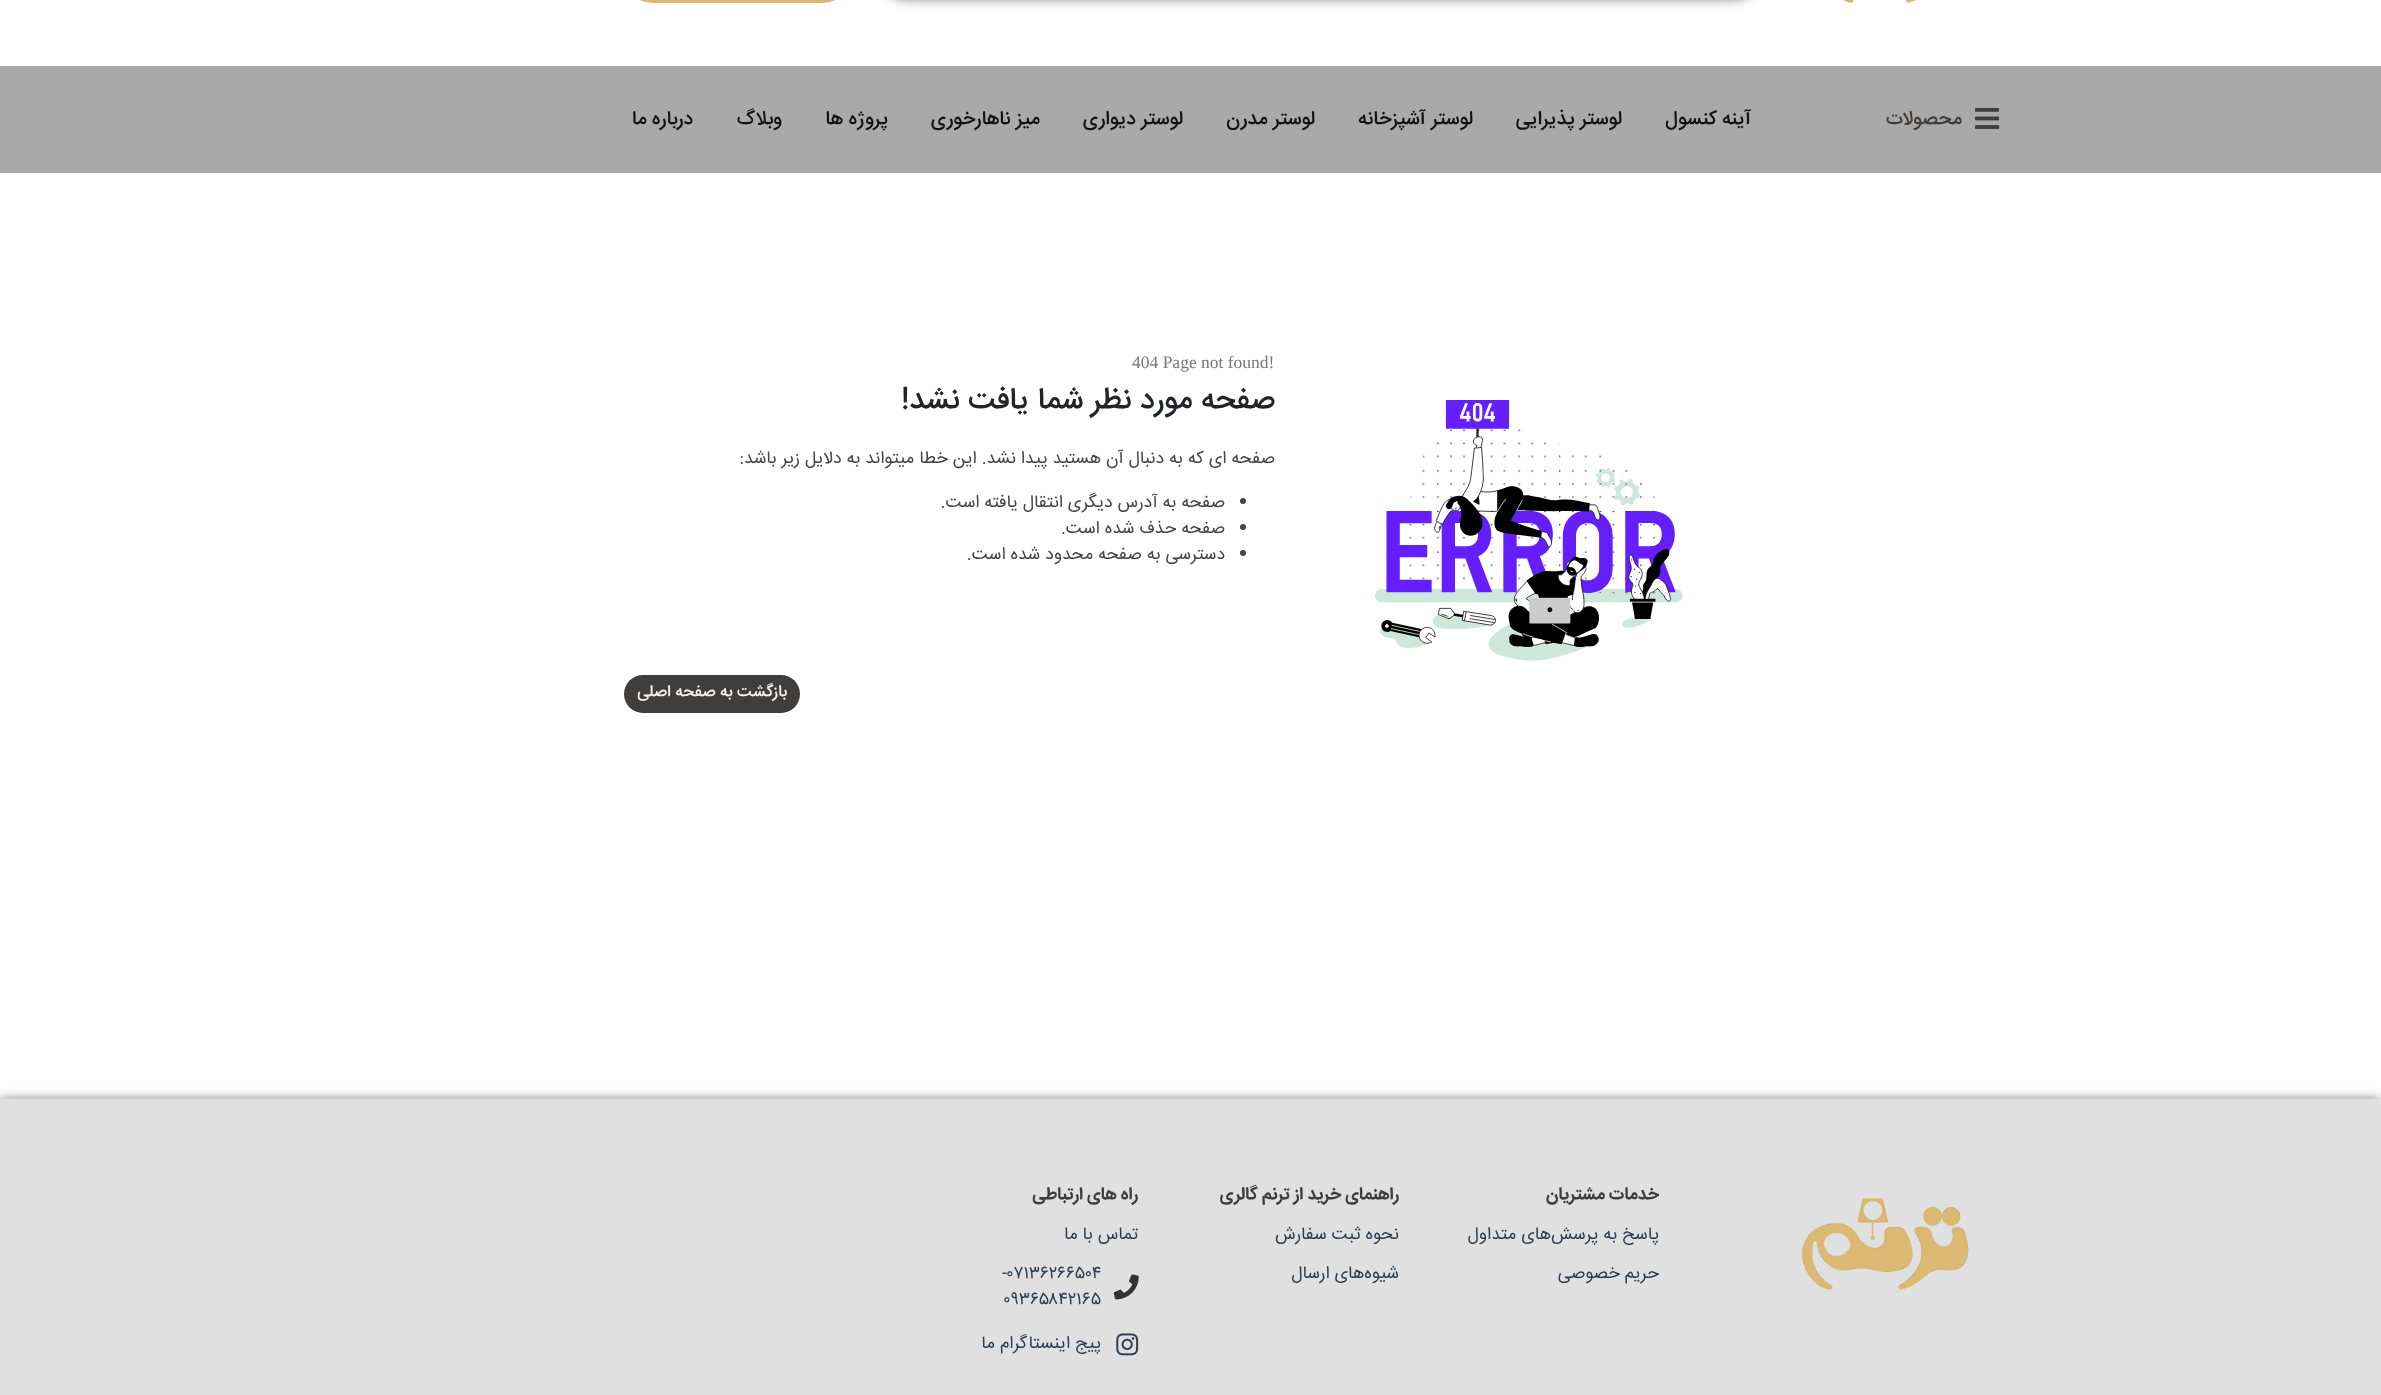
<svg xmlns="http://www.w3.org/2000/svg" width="2381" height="1395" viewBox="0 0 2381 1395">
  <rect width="100%" height="100%" fill="#fff"/>
  <rect x="630" y="-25" width="215" height="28" rx="25" fill="#dbb972"/>
  <image x="1843" y="0" width="74" height="3" href="img/1.png"/>
  <rect x="884" y="-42" width="872" height="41" rx="24" fill="#00000080" filter="blur(6px)"/>
  <path d="M0 66h2381v107H0z" fill="#a9a9a9"/>
  <image x="1975" y="107" width="25" height="22" href="img/2.png"/>
  <image x="1375" y="400" width="308" height="261" href="img/3.png"/>
  <circle cx="1243" cy="501" r="3" fill="#444"/>
  <circle cx="1243" cy="527" r="3" fill="#444"/>
  <circle cx="1243" cy="553" r="3" fill="#444"/>
  <rect x="624" y="675" width="176" height="38" rx="19" fill="#3f3e3d"/>
  <path d="M0 1099h2381v290H0z" fill="#00000080" filter="blur(6px)"/>
  <path d="M0 1099h2381v296H0z" fill="#e0e0e0"/>
  <image x="1801" y="1198" width="168" height="92" href="img/4.png"/>
  <image x="1113" y="1274" width="26" height="26" href="img/5.png"/>
  <image x="1116" y="1333" width="23" height="23" href="img/6.png"/>
  <text x="1962" y="124" font-family="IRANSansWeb" font-size="19.5" font-weight="500" direction="rtl" fill="#3f3e3d">محصولات</text>
  <g font-family="IRANSansWeb" font-size="19.5" font-weight="500" direction="rtl" fill="#131212">
    <text x="1751" y="124">آینه کنسول</text>
    <text x="1622" y="124">لوستر پذیرایی</text>
    <text x="1473" y="124">لوستر آشپزخانه</text>
    <text x="1315" y="124">لوستر مدرن</text>
    <text x="1183" y="124">لوستر دیواری</text>
    <text x="1040" y="124">میز ناهارخوری</text>
    <text x="888" y="124">پروژه ها</text>
    <text x="782" y="124">وبلاگ</text>
    <text x="693" y="124">درباره ما</text>
  </g>
  <text x="1132" y="368" font-family="Liberation Serif" font-size="17.5" fill="#777">404 Page not found!</text>
  <text x="1275" y="408" font-family="IRANSansWeb" font-size="30" font-weight="500" direction="rtl" fill="#212529">صفحه مورد نظر شما یافت نشد!</text>
  <g font-family="IRANSansWeb" font-size="17.5" direction="rtl" fill="#444">
    <text x="1275" y="463">صفحه ای که به دنبال آن هستید پیدا نشد. این خطا میتواند به دلایل زیر باشد:</text>
    <text x="1225" y="507">صفحه به آدرس دیگری انتقال یافته است.</text>
    <text x="1225" y="533">صفحه حذف شده است.</text>
    <text x="1225" y="559">دسترسی به صفحه محدود شده است.</text>
  </g>
  <text x="787" y="696" font-family="IRANSansWeb" font-size="16.25" font-weight="500" direction="rtl" fill="#f3f3f3">بازگشت به صفحه اصلی</text>
  <text x="1659" y="1199" font-family="IRANSansWeb" font-size="17.5" font-weight="bold" direction="rtl" fill="#3f3e3d">خدمات مشتریان</text>
  <g font-family="IRANSansWeb" font-size="17.5" direction="rtl" fill="#2c3e50">
    <text x="1659" y="1239">پاسخ به پرسش‌های متداول</text>
    <text x="1659" y="1278">حریم خصوصی</text>
  </g>
  <text x="1399" y="1199" font-family="IRANSansWeb" font-size="17.5" font-weight="bold" direction="rtl" fill="#3f3e3d">راهنمای خرید از ترنم گالری</text>
  <g font-family="IRANSansWeb" font-size="17.5" direction="rtl" fill="#2c3e50">
    <text x="1399" y="1239">نحوه ثبت سفارش</text>
    <text x="1399" y="1278">شیوه‌های ارسال</text>
  </g>
  <text x="1138" y="1199" font-family="IRANSansWeb" font-size="17.5" font-weight="bold" direction="rtl" fill="#3f3e3d">راه های ارتباطی</text>
  <text x="1138" y="1239" font-family="IRANSansWeb" font-size="17.5" direction="rtl" fill="#2c3e50">تماس با ما</text>
  <g font-family="IRANSansWeb" font-size="17.5" fill="#2c3e50">
    <text x="1002" y="1278">-۰۷۱۳۶۲۶۶۵۰۴</text>
    <text x="1003" y="1304">۰۹۳۶۵۸۴۲۱۶۵</text>
  </g>
  <text x="1101" y="1348" font-family="IRANSansWeb" font-size="17.5" direction="rtl" fill="#2c3e50">پیج اینستاگرام ما</text>
</svg>
